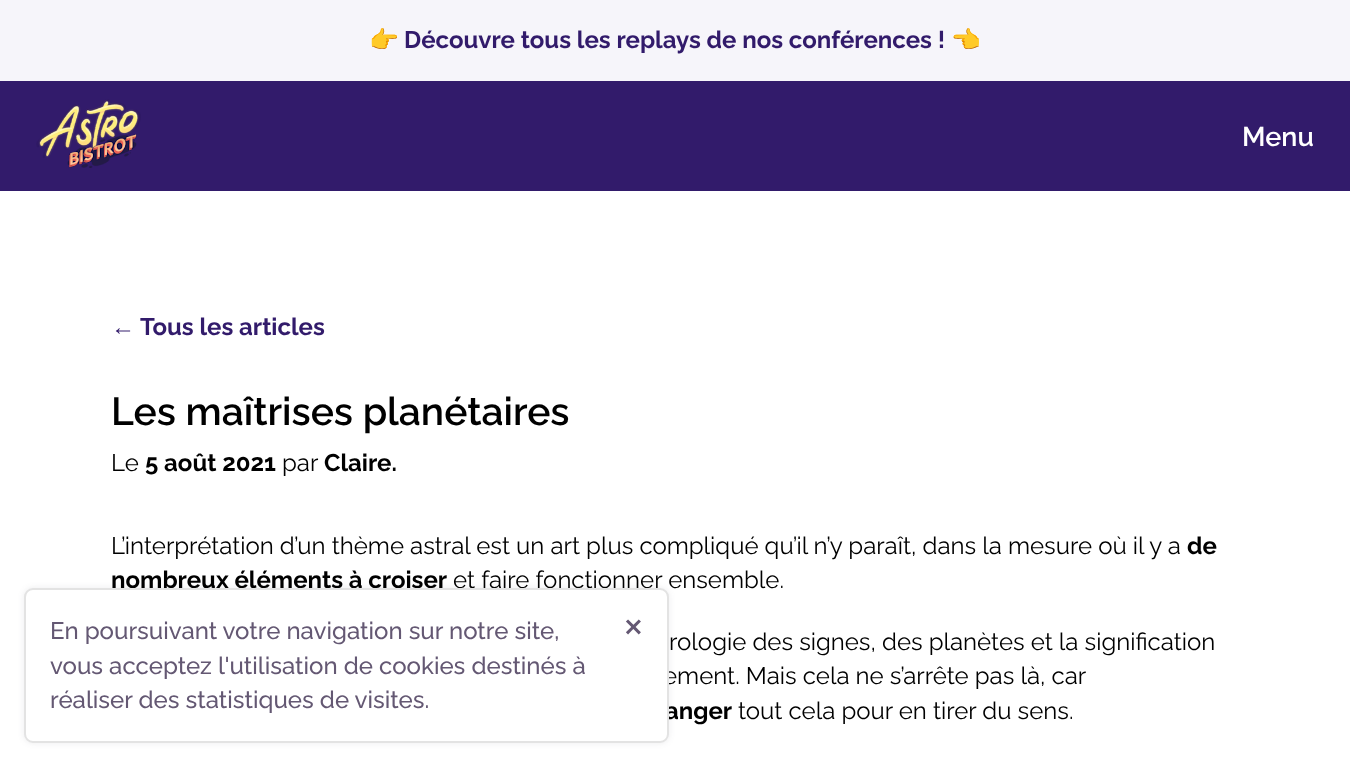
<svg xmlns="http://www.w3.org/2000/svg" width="1350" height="766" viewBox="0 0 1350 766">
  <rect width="100%" height="100%" fill="#fff"/>
  <path d="M0 0h1350v81H0z" fill="#f6f5fa"/>
  <path d="M0 81h1350v110H0z" fill="#321b6b"/>
  <image x="36" y="99" width="105" height="69" href="img/1.png"/>
  <rect x="24" y="588" width="645" height="155" rx="9" fill="#3e3d531a" filter="blur(3px)"/>
  <text x="369" y="48" font-family="Noto Color Emoji" font-size="24" font-weight="bold" fill="#321b6b">👉</text>
  <text x="404" y="48" font-family="Raleway" font-size="24" font-weight="bold" fill="#321b6b">Découvre tous les replays de nos conférences !</text>
  <text x="951" y="48" font-family="Noto Color Emoji" font-size="24" font-weight="bold" fill="#321b6b">👈</text>
  <text x="1242" y="146" font-family="Raleway" font-size="27" font-weight="600" fill="#fff">Menu</text>
  <text x="111" y="335" font-family="Liberation Sans" font-size="24" font-weight="bold" fill="#321b6b">←</text>
  <text x="140" y="335" font-family="Raleway" font-size="24" font-weight="bold" fill="#321b6b">Tous les articles</text>
  <text x="111" y="425" font-family="Raleway" font-size="39" font-weight="600" fill="#000">Les maîtrises planétaires</text>
  <text x="111" y="471" font-family="Raleway" font-size="24" fill="#000">Le</text>
  <text x="145" y="471" font-family="Raleway" font-size="24" font-weight="bold" fill="#000">5 août 2021</text>
  <text x="282" y="471" font-family="Raleway" font-size="24" fill="#000">par</text>
  <text x="324" y="471" font-family="Raleway" font-size="24" font-weight="bold" fill="#000">Claire.</text>
  <text x="111" y="554" font-family="Raleway" font-size="24" fill="#000">L’interprétation d’un thème astral est un art plus compliqué qu’il n’y paraît, dans la mesure où il y a</text>
  <g font-family="Raleway" font-size="24" font-weight="bold" fill="#000">
    <text x="1187" y="554">de</text>
    <text x="111" y="588">nombreux éléments à croiser</text>
  </g>
  <g font-family="Raleway" font-size="24" fill="#000">
    <text x="453" y="588">et faire fonctionner ensemble.</text>
    <text x="669" y="650">rologie des signes, des planètes et la signification</text>
    <text x="663" y="684">ement. Mais cela ne s’arrête pas là, car</text>
  </g>
  <text x="665" y="719" font-family="Raleway" font-size="24" font-weight="bold" fill="#000">anger</text>
  <text x="738" y="719" font-family="Raleway" font-size="24" fill="#000">tout cela pour en tirer du sens.</text>
  <rect x="25" y="589" width="643" height="153" rx="8" fill="#fff" stroke="#e3e3e3" stroke-width="2"/>
  <g font-family="Raleway" font-size="24" font-weight="500" fill="#645873">
    <text x="50" y="639">En poursuivant votre navigation sur notre site,</text>
    <text x="50" y="674">vous acceptez l'utilisation de cookies destinés à</text>
    <text x="50" y="708">réaliser des statistiques de visites.</text>
  </g>
  <text x="623" y="636" font-family="DejaVu Sans" font-size="24" font-weight="bold" fill="#645873">✕</text>
</svg>
